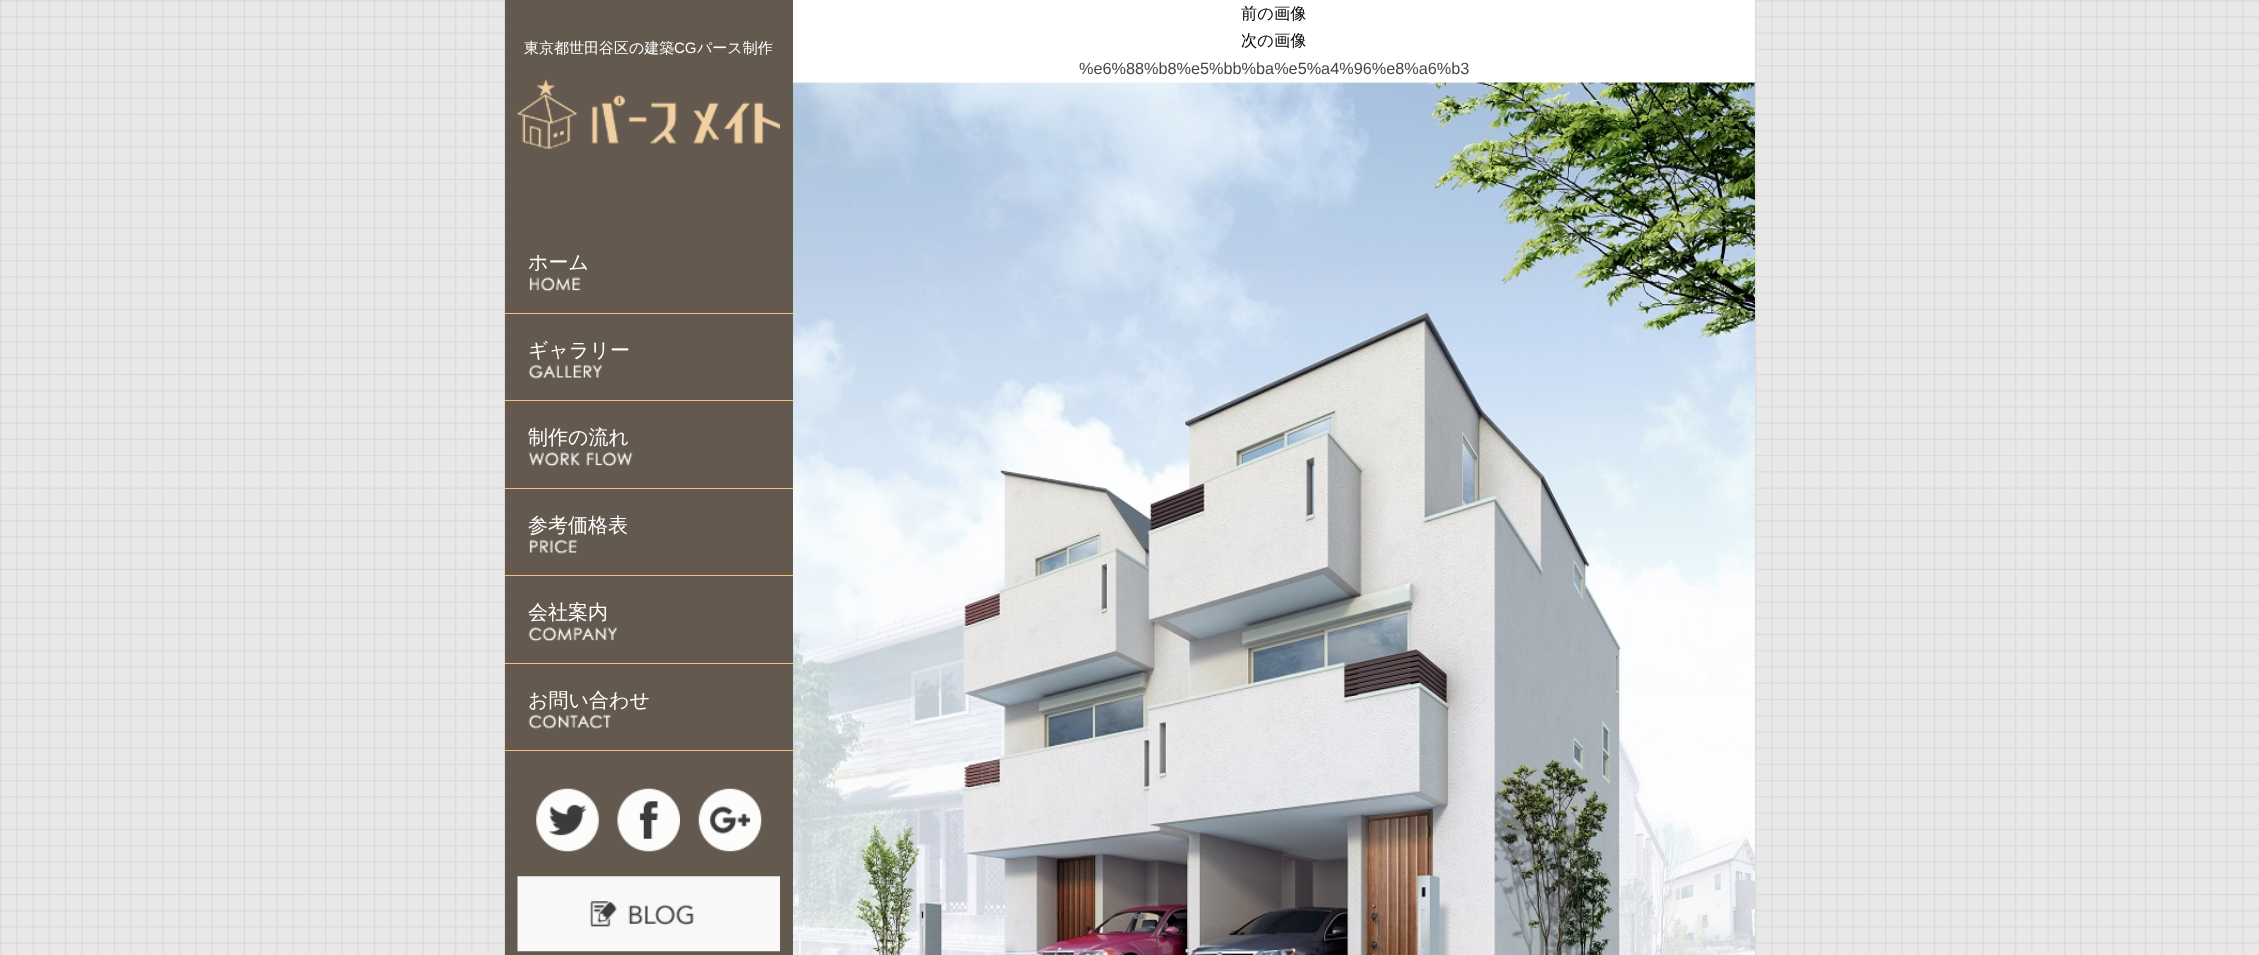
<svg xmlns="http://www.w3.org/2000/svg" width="2259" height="955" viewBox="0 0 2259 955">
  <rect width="100%" height="100%" fill="#fff"/>
  <image x="0" y="0" width="2259" height="955" href="img/1.png"/>
  <path d="M793 0h962v83H793z" fill="#fff"/>
  <path d="M505 0h288v955H505z" fill="#63594e"/>
  <image x="517" y="79" width="263" height="70" href="img/2.png"/>
  <image x="529" y="277" width="52" height="15" href="img/3.png"/>
  <path d="M505 313h288v1H505z" fill="#f7be7e"/>
  <image x="528" y="364" width="75" height="15" href="img/4.png"/>
  <path d="M505 400h288v1H505z" fill="#f7be7e"/>
  <image x="528" y="452" width="105" height="15" href="img/5.png"/>
  <path d="M505 488h288v1H505z" fill="#f7be7e"/>
  <image x="529" y="539" width="49" height="15" href="img/6.png"/>
  <path d="M505 575h288v1H505z" fill="#f7be7e"/>
  <image x="528" y="627" width="90" height="15" href="img/7.png"/>
  <path d="M505 663h288v1H505z" fill="#f7be7e"/>
  <image x="528" y="714" width="84" height="15" href="img/8.png"/>
  <path d="M505 750h288v1H505z" fill="#f7be7e"/>
  <image x="536" y="788" width="63" height="64" href="img/9.png"/>
  <image x="617" y="788" width="63" height="64" href="img/10.png"/>
  <image x="698" y="788" width="64" height="64" href="img/11.png"/>
  <image x="517" y="876" width="263" height="76" href="img/12.png"/>
  <image x="793" y="82" width="962" height="873" href="img/13.png"/>
  <text x="524" y="53" font-family="WenQuanYi Zen Hei" font-size="15" font-weight="500" fill="#fff">東京都世田谷区の建築</text>
  <text x="674" y="53" font-family="Liberation Sans" font-size="15" fill="#fff">CG</text>
  <text x="697" y="53" font-family="WenQuanYi Zen Hei" font-size="15" font-weight="500" fill="#fff">パース制作</text>
  <g font-family="WenQuanYi Zen Hei" font-size="20" font-weight="500" fill="#fff">
    <text x="528" y="269">ホーム</text>
    <text x="528" y="357">ギャラリー</text>
    <text x="528" y="444">制作の流れ</text>
    <text x="528" y="532">参考価格表</text>
    <text x="528" y="619">会社案内</text>
    <text x="528" y="707">お問い合わせ</text>
  </g>
  <g font-family="WenQuanYi Zen Hei" font-size="16.25" font-weight="500" fill="#000">
    <text x="1241" y="19">前の画像</text>
    <text x="1241" y="46">次の画像</text>
  </g>
  <text x="1079" y="74" font-family="Liberation Sans" font-size="16.25" fill="#474747">%e6%88%b8%e5%bb%ba%e5%a4%96%e8%a6%b3</text>
</svg>
